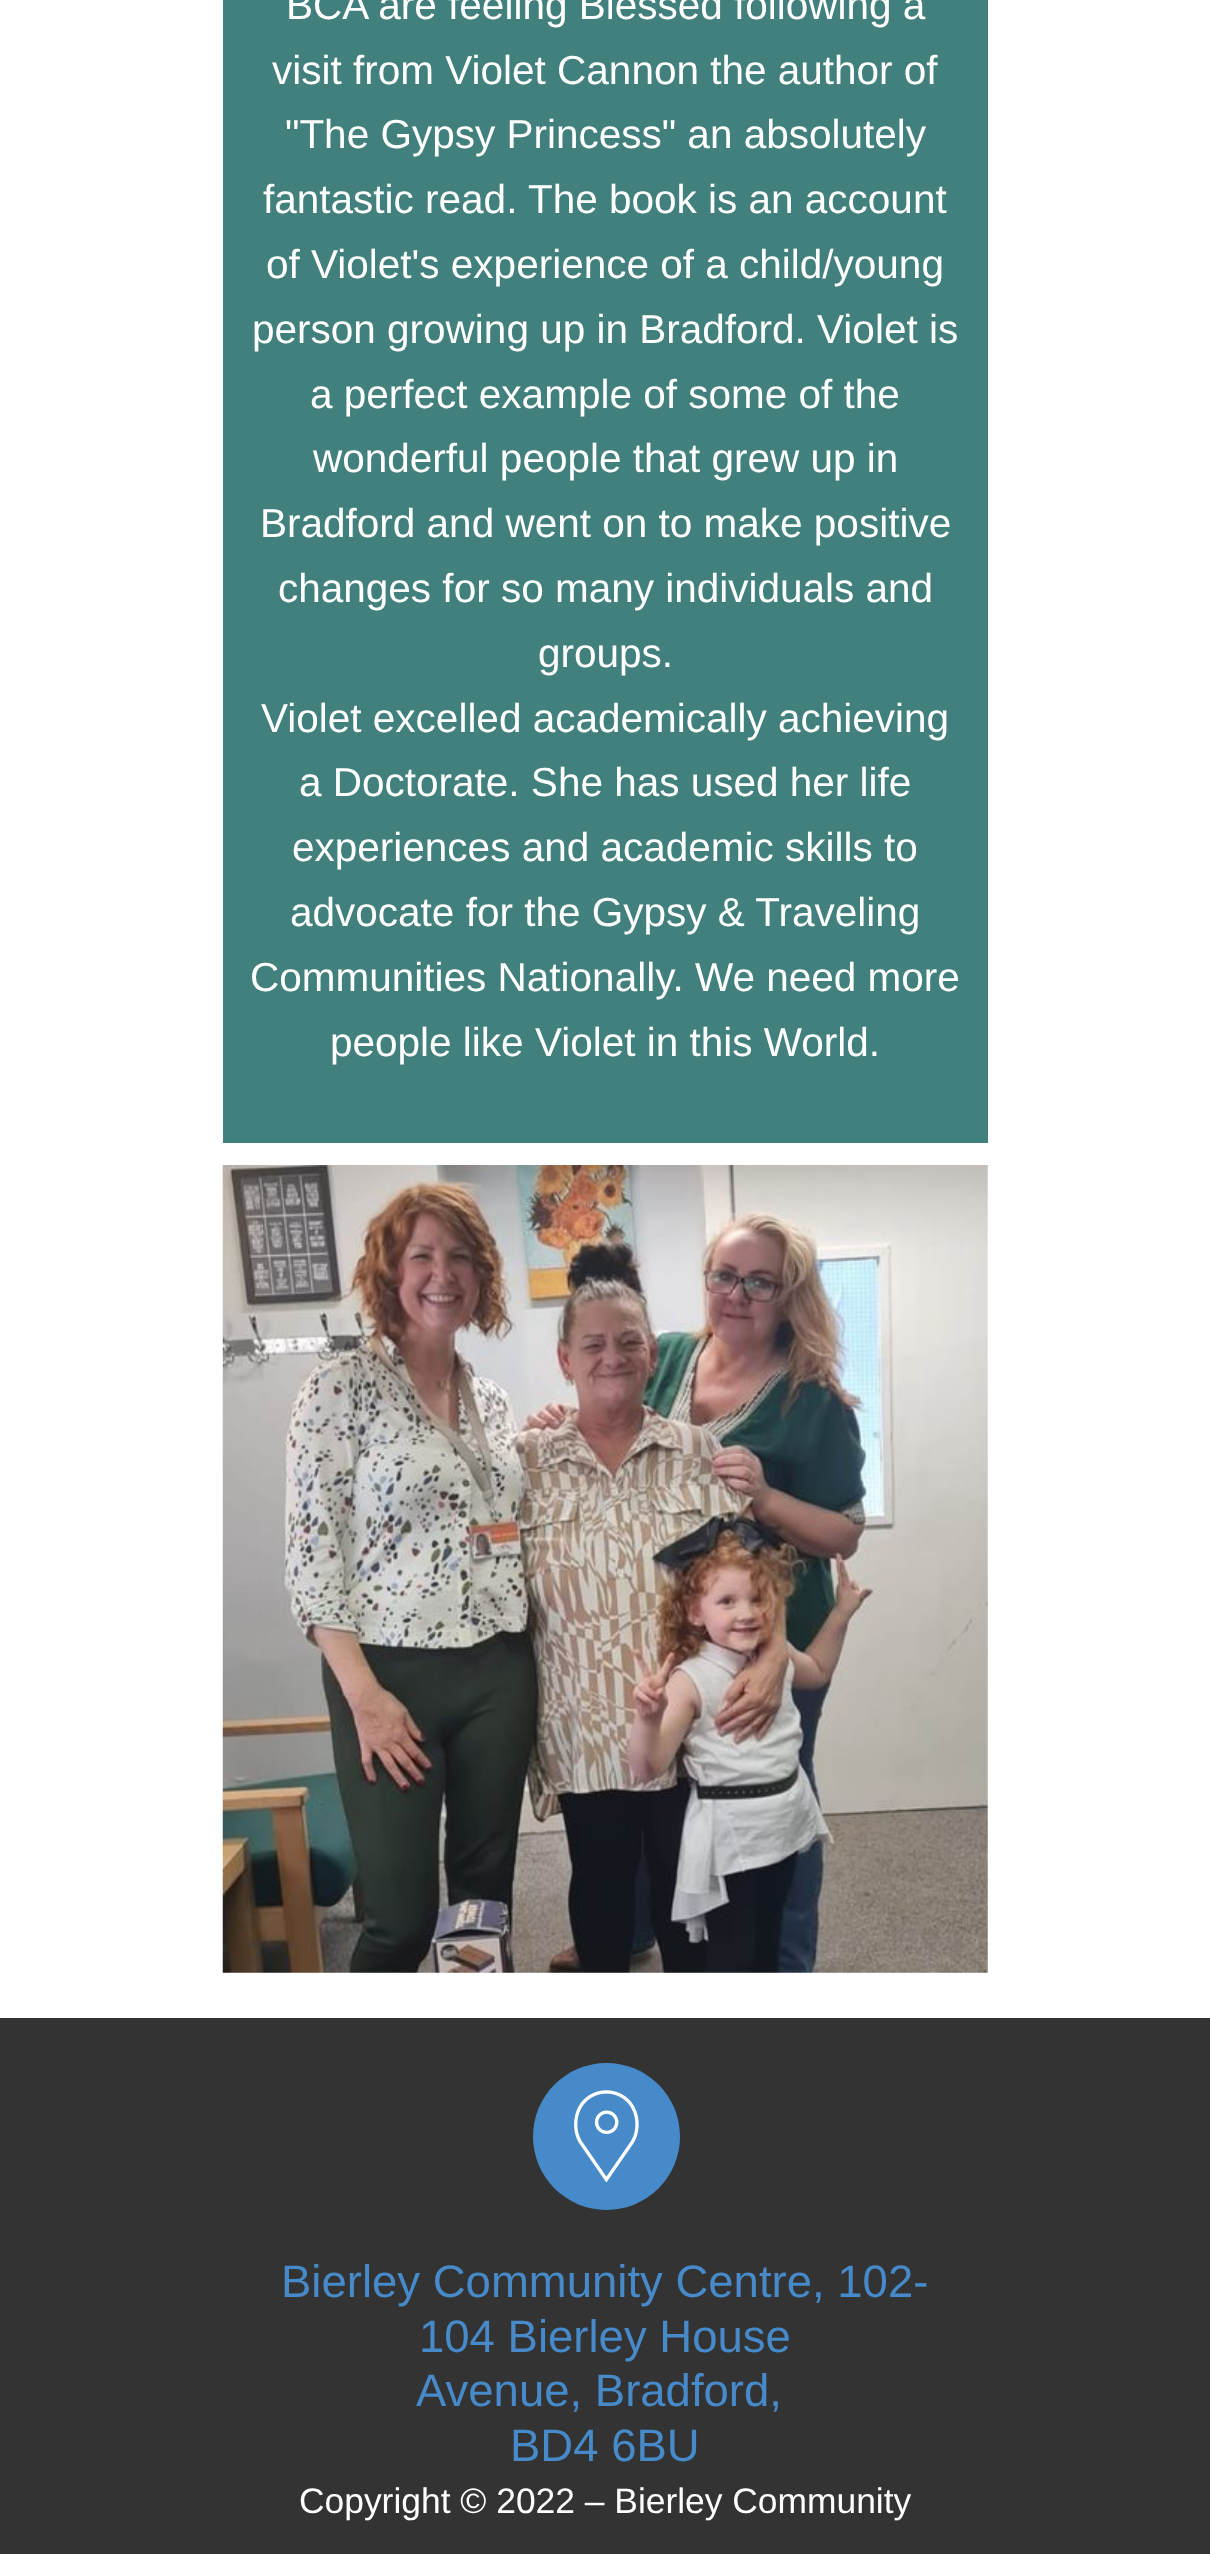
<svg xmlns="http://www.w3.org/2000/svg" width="1210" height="2554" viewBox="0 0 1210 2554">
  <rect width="100%" height="100%" fill="#fff"/>
  <path d="M223 0h765v1143H223z" fill="#41807c"/>
  <image x="222" y="1165" width="766" height="808" href="img/1.png"/>
  <path d="M0 2018h1210v536H0z" fill="#333"/>
  <circle cx="606.5" cy="2136.5" r="73.5" fill="#478ac9"/>
  <image x="574" y="2090" width="65" height="93" href="img/2.png"/>
  <g font-family="Liberation Sans" font-size="40.5" fill="#fff">
    <text x="286" y="19">BCA are feeling Blessed following a</text>
    <text x="272" y="84">visit from Violet Cannon the author of</text>
    <text x="285" y="148">"The Gypsy Princess" an absolutely</text>
    <text x="263" y="213">fantastic read. The book is an account</text>
    <text x="266" y="278">of Violet's experience of a child/young</text>
    <text x="252" y="343">person growing up in Bradford. Violet is</text>
    <text x="310" y="408">a perfect example of some of the</text>
    <text x="313" y="472">wonderful people that grew up in</text>
    <text x="260" y="537">Bradford and went on to make positive</text>
    <text x="278" y="602">changes for so many individuals and</text>
    <text x="538" y="667">groups.</text>
    <text x="261" y="732">Violet excelled academically achieving</text>
    <text x="299" y="796">a Doctorate. She has used her life</text>
    <text x="292" y="861">experiences and academic skills to</text>
    <text x="290" y="926">advocate for the Gypsy &amp; Traveling</text>
    <text x="250" y="991">Communities Nationally. We need more</text>
    <text x="330" y="1056">people like Violet in this World.</text>
  </g>
  <g font-family="Liberation Sans" font-size="45.5" fill="#478ac9">
    <text x="281" y="2297">Bierley Community Centre, 102-</text>
    <text x="419" y="2352">104 Bierley House</text>
    <text x="416" y="2406">Avenue, Bradford,</text>
    <text x="510" y="2461">BD4 6BU</text>
  </g>
  <text x="299" y="2513" font-family="Liberation Sans" font-size="35.4" fill="#fff">Copyright © 2022 – Bierley Community</text>
</svg>
